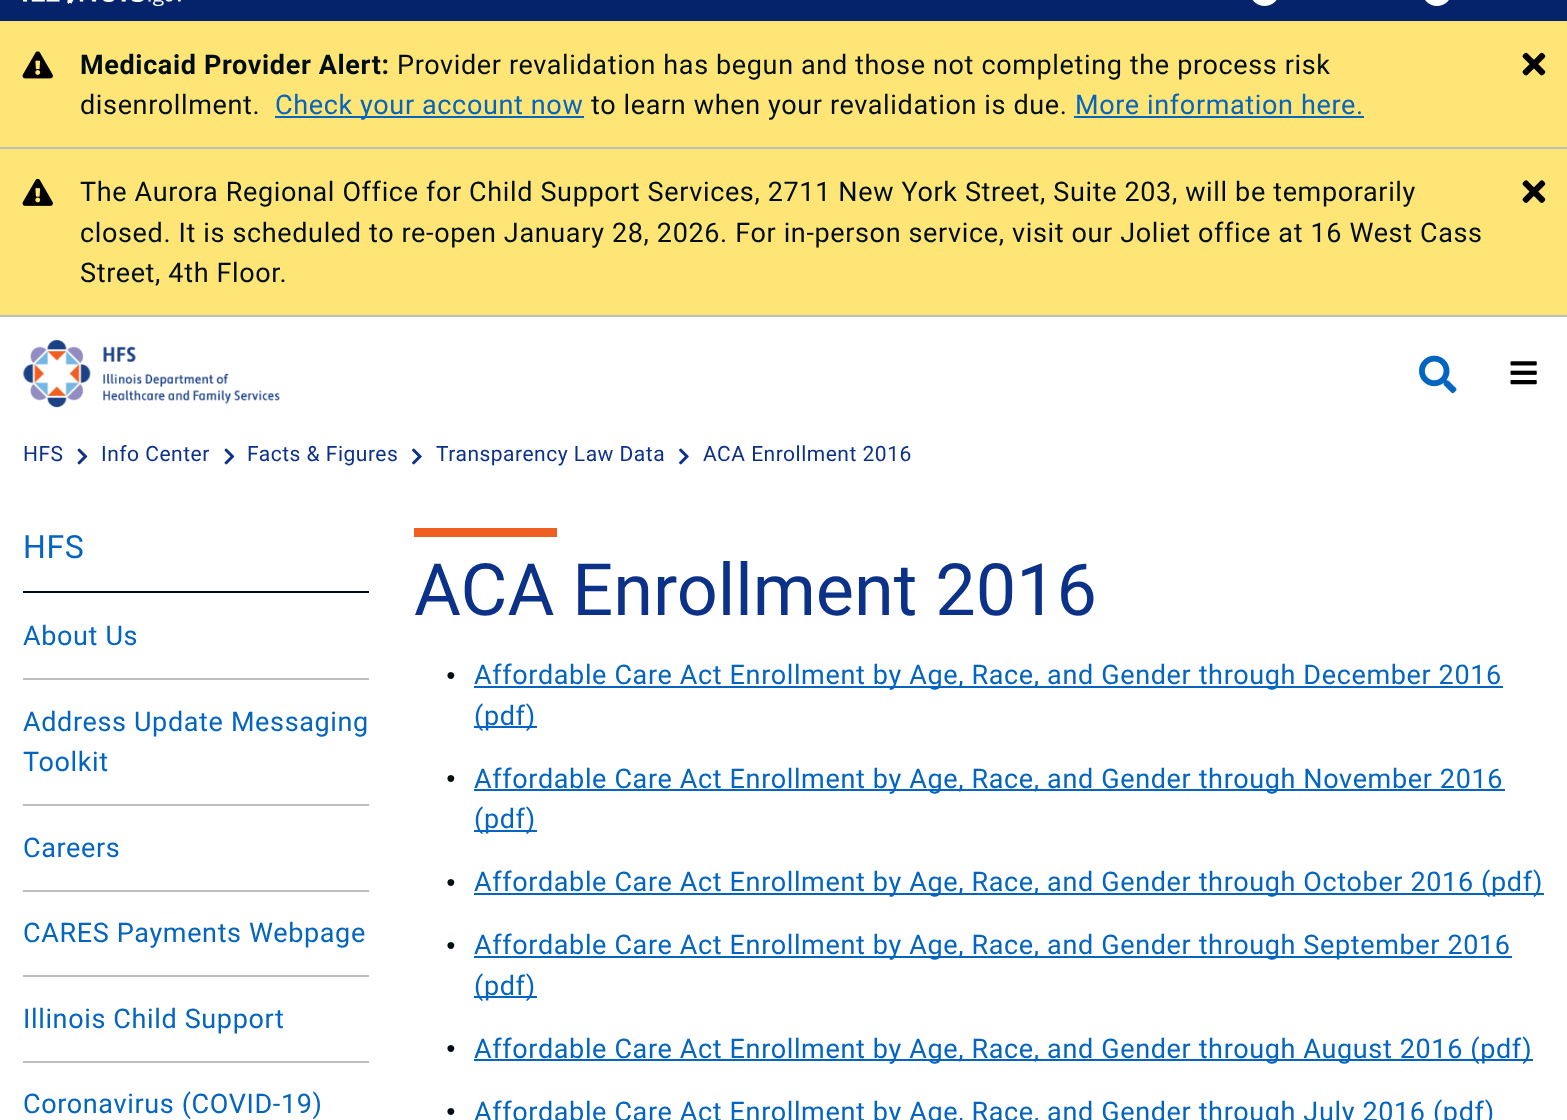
<svg xmlns="http://www.w3.org/2000/svg" width="1567" height="1120" viewBox="0 0 1567 1120">
  <rect width="100%" height="100%" fill="#fff"/>
  <path d="M0 0h1567v21H0z" fill="#05236a"/>
  <image x="23" y="0" width="158" height="6" href="img/1.png"/>
  <image x="1252" y="0" width="25" height="6" href="img/2.png"/>
  <image x="1425" y="0" width="24" height="6" href="img/3.png"/>
  <path d="M0 21h1567v126H0z" fill="#ffe576"/>
  <path d="M0 147h1567v2H0z" fill="#bebebe"/>
  <image x="22" y="51" width="31" height="28" href="img/4.png"/>
  <path d="M275 116h309v2H275z" fill="#0365c0"/>
  <path d="M1074 116h290v2H1074z" fill="#0365c0"/>
  <image x="1522" y="52" width="24" height="24" href="img/5.png"/>
  <path d="M0 149h1567v166H0z" fill="#ffe576"/>
  <path d="M0 315h1567v2H0z" fill="#bebebe"/>
  <image x="22" y="178" width="31" height="28" href="img/6.png"/>
  <image x="1522" y="180" width="24" height="23" href="img/7.png"/>
  <image x="22" y="339" width="258" height="69" href="img/8.png"/>
  <image x="1419" y="355" width="38" height="39" href="img/9.png"/>
  <image x="1510" y="361" width="27" height="24" href="img/10.png"/>
  <image x="77" y="448" width="11" height="17" href="img/11.png"/>
  <image x="224" y="448" width="11" height="17" href="img/11.png"/>
  <image x="412" y="448" width="10" height="17" href="img/12.png"/>
  <image x="679" y="448" width="10" height="17" href="img/12.png"/>
  <path d="M23 591h346v2H23z" fill="#000e14"/>
  <path d="M23 678h346v2H23z" fill="#bebebe"/>
  <path d="M23 804h346v2H23z" fill="#bebebe"/>
  <path d="M23 890h346v2H23z" fill="#bebebe"/>
  <path d="M23 975h346v2H23z" fill="#bebebe"/>
  <path d="M23 1061h346v2H23z" fill="#bebebe"/>
  <path d="M414 528h143v9H414z" fill="#f05e21"/>
  <path d="M474 686h1029v2H474z" fill="#0365c0"/>
  <path d="M474 726h63v2H474z" fill="#0365c0"/>
  <path d="M474 789h1031v2H474z" fill="#0365c0"/>
  <path d="M474 830h63v2H474z" fill="#0365c0"/>
  <path d="M474 893h1070v2H474z" fill="#0365c0"/>
  <path d="M474 956h1038v2H474z" fill="#0365c0"/>
  <path d="M474 996h63v2H474z" fill="#0365c0"/>
  <path d="M474 1059h1059v2H474z" fill="#0365c0"/>
  <text x="80" y="74" font-family="Roboto" font-size="27" font-weight="bold" letter-spacing="0.64" fill="#000e14">Medicaid Provider Alert:</text>
  <g font-family="Roboto" font-size="27" letter-spacing="0.64" fill="#000e14">
    <text x="397" y="74">Provider revalidation has begun and those not completing the process risk</text>
    <text x="80" y="114">disenrollment.</text>
  </g>
  <text x="275" y="114" font-family="Roboto" font-size="27" letter-spacing="0.64" fill="#0365c0">Check your account now</text>
  <text x="591" y="114" font-family="Roboto" font-size="27" letter-spacing="0.64" fill="#000e14">to learn when your revalidation is due.</text>
  <text x="1075" y="114" font-family="Roboto" font-size="27" letter-spacing="0.64" fill="#0365c0">More information here.</text>
  <g font-family="Roboto" font-size="27" letter-spacing="0.64" fill="#000e14">
    <text x="80" y="201">The Aurora Regional Office for Child Support Services, 2711 New York Street, Suite 203, will be temporarily</text>
    <text x="80" y="242">closed. It is scheduled to re-open January 28, 2026. For in-person service, visit our Joliet office at 16 West Cass</text>
    <text x="80" y="282">Street, 4th Floor.</text>
  </g>
  <g font-family="Roboto" font-size="21" letter-spacing="0.5" fill="#0c3189">
    <text x="23" y="461">HFS</text>
    <text x="101" y="461">Info Center</text>
    <text x="247" y="461">Facts &amp; Figures</text>
    <text x="436" y="461">Transparency Law Data</text>
    <text x="703" y="461">ACA Enrollment 2016</text>
  </g>
  <text x="23" y="558" font-family="Roboto" font-size="32" letter-spacing="0.64" fill="#0365c0">HFS</text>
  <g font-family="Roboto" font-size="27" letter-spacing="0.64" fill="#0365c0">
    <text x="23" y="645">About Us</text>
    <text x="23" y="731">Address Update Messaging</text>
    <text x="23" y="771">Toolkit</text>
    <text x="23" y="857">Careers</text>
    <text x="23" y="942">CARES Payments Webpage</text>
    <text x="23" y="1028">Illinois Child Support</text>
    <text x="23" y="1113">Coronavirus (COVID-19)</text>
  </g>
  <text x="414" y="615" font-family="Roboto" font-size="72" fill="#0c3189">ACA Enrollment 2016</text>
  <text x="446" y="680" font-family="Liberation Sans" font-size="16" letter-spacing="0.64" fill="#000e14">●</text>
  <g font-family="Roboto" font-size="27" letter-spacing="0.64" fill="#0365c0">
    <text x="474" y="684">Affordable Care Act Enrollment by Age, Race, and Gender through December 2016</text>
    <text x="474" y="725">(pdf)</text>
  </g>
  <text x="446" y="783" font-family="Liberation Sans" font-size="16" letter-spacing="0.64" fill="#000e14">●</text>
  <g font-family="Roboto" font-size="27" letter-spacing="0.64" fill="#0365c0">
    <text x="474" y="788">Affordable Care Act Enrollment by Age, Race, and Gender through November 2016</text>
    <text x="474" y="828">(pdf)</text>
  </g>
  <text x="446" y="887" font-family="Liberation Sans" font-size="16" letter-spacing="0.64" fill="#000e14">●</text>
  <text x="474" y="891" font-family="Roboto" font-size="27" letter-spacing="0.64" fill="#0365c0">Affordable Care Act Enrollment by Age, Race, and Gender through October 2016 (pdf)</text>
  <text x="446" y="950" font-family="Liberation Sans" font-size="16" letter-spacing="0.64" fill="#000e14">●</text>
  <g font-family="Roboto" font-size="27" letter-spacing="0.64" fill="#0365c0">
    <text x="474" y="954">Affordable Care Act Enrollment by Age, Race, and Gender through September 2016</text>
    <text x="474" y="995">(pdf)</text>
  </g>
  <text x="446" y="1053" font-family="Liberation Sans" font-size="16" letter-spacing="0.64" fill="#000e14">●</text>
  <text x="474" y="1058" font-family="Roboto" font-size="27" letter-spacing="0.64" fill="#0365c0">Affordable Care Act Enrollment by Age, Race, and Gender through August 2016 (pdf)</text>
  <text x="446" y="1116" font-family="Liberation Sans" font-size="16" letter-spacing="0.64" fill="#000e14">●</text>
  <text x="474" y="1121" font-family="Roboto" font-size="27" letter-spacing="0.64" fill="#0365c0">Affordable Care Act Enrollment by Age, Race, and Gender through July 2016 (pdf)</text>
</svg>
